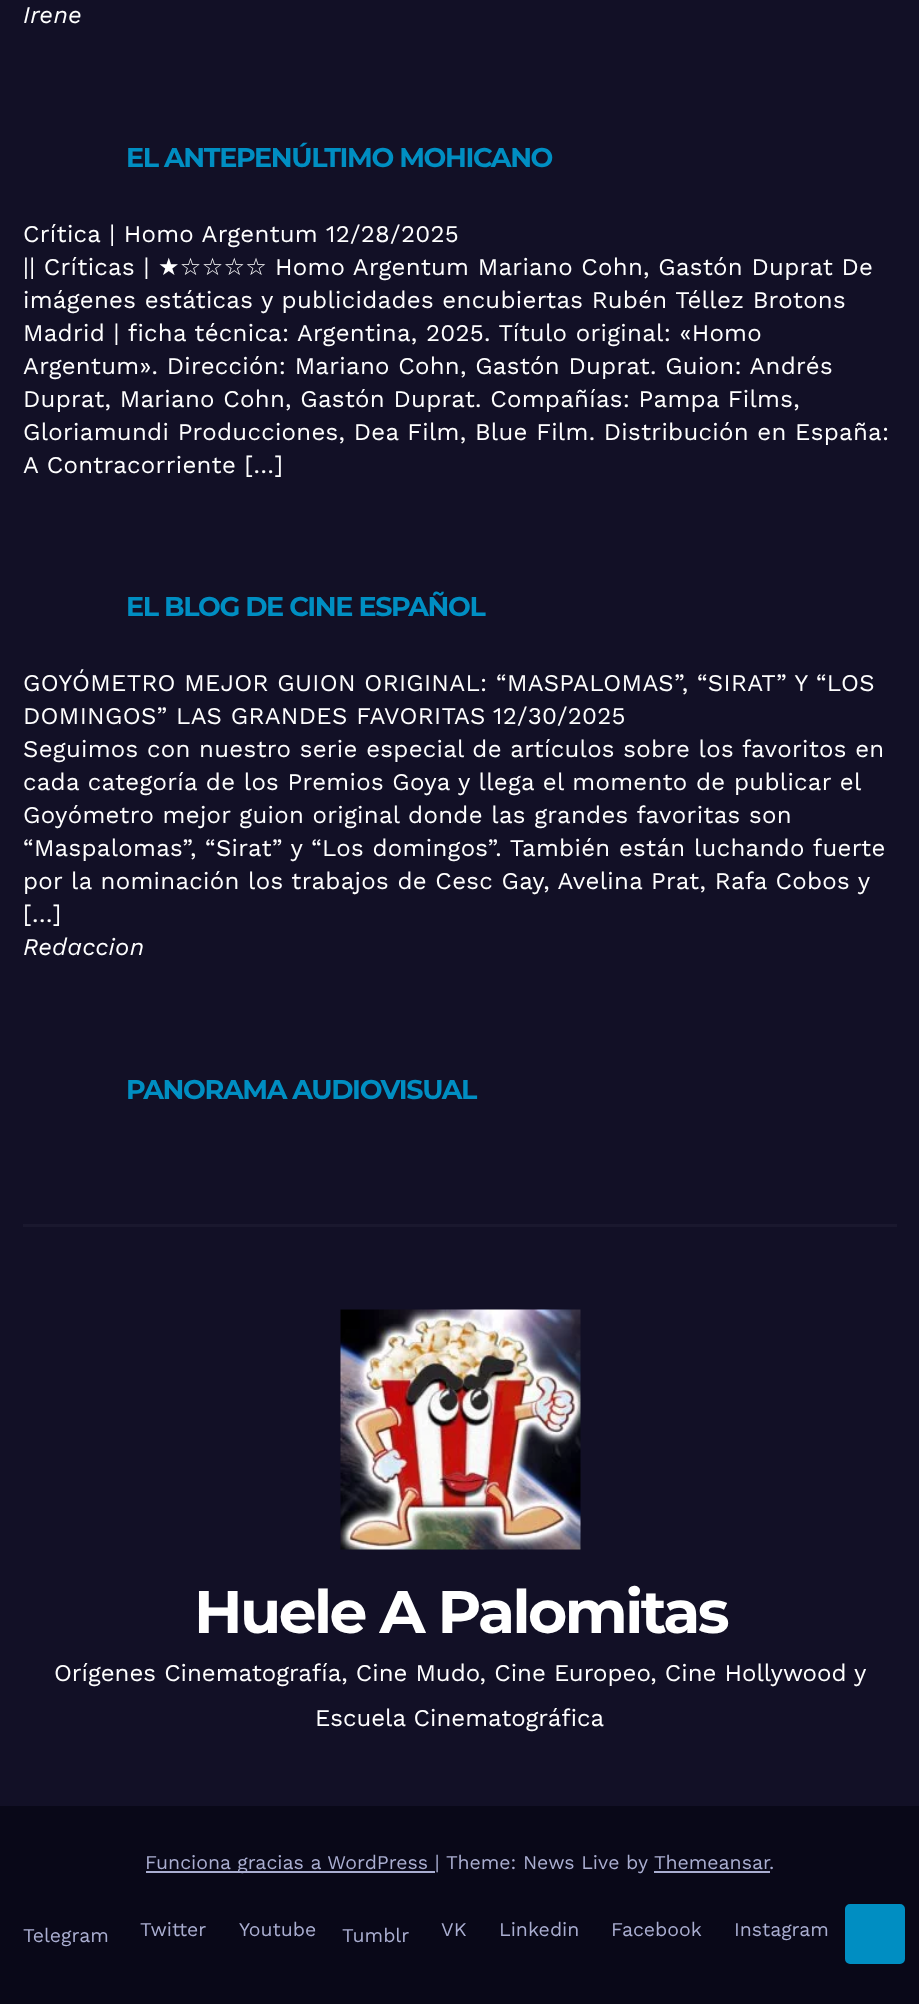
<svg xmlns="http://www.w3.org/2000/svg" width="919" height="2004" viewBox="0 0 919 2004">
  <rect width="100%" height="100%" fill="#121026"/>
  <path d="M23 1224h874v3H23z" fill="#1a182e"/>
  <image x="340" y="1309" width="241" height="241" href="img/1.png"/>
  <path d="M0 1806h919v198H0z" fill="#090818"/>
  <path d="M146 1871h289v2H146z" fill="#aaaed1"/>
  <path d="M654 1871h116v2H654z" fill="#aaaed1"/>
  <rect x="846.5" y="1905.5" width="57" height="57" rx="3.5" fill="#008ec2" stroke="#008ec2" stroke-width="3"/>
  <text x="23" y="23" font-family="Work Sans" font-size="24" font-style="italic" letter-spacing="0.3" fill="#fff">Irene</text>
  <text x="126" y="167" font-family="Montserrat" font-size="27" font-weight="bold" letter-spacing="-1.35" fill="#008ec2">EL ANTEPENÚLTIMO MOHICANO</text>
  <g font-family="Work Sans" font-size="24" letter-spacing="0.3" fill="#fff">
    <text x="23" y="242">Crítica | Homo Argentum</text>
    <text x="326" y="242">12/28/2025</text>
    <text x="23" y="275">|| Críticas |</text>
  </g>
  <text x="158" y="275" font-family="DejaVu Sans" font-size="24" letter-spacing="0.3" fill="#fff">★☆☆☆☆</text>
  <g font-family="Work Sans" font-size="24" letter-spacing="0.3" fill="#fff">
    <text x="275" y="275">Homo Argentum Mariano Cohn, Gastón Duprat De</text>
    <text x="23" y="308">imágenes estáticas y publicidades encubiertas Rubén Téllez Brotons</text>
    <text x="23" y="341">Madrid | ficha técnica: Argentina, 2025. Título original: «Homo</text>
    <text x="23" y="374">Argentum». Dirección: Mariano Cohn, Gastón Duprat. Guion: Andrés</text>
    <text x="23" y="407">Duprat, Mariano Cohn, Gastón Duprat. Compañías: Pampa Films,</text>
    <text x="23" y="440">Gloriamundi Producciones, Dea Film, Blue Film. Distribución en España:</text>
    <text x="23" y="473">A Contracorriente […]</text>
  </g>
  <text x="126" y="616" font-family="Montserrat" font-size="27" font-weight="bold" letter-spacing="-1.35" fill="#008ec2">EL BLOG DE CINE ESPAÑOL</text>
  <g font-family="Work Sans" font-size="24" letter-spacing="0.3" fill="#fff">
    <text x="23" y="691">GOYÓMETRO MEJOR GUION ORIGINAL: “MASPALOMAS”, “SIRAT” Y “LOS</text>
    <text x="23" y="724">DOMINGOS” LAS GRANDES FAVORITAS</text>
    <text x="493" y="724">12/30/2025</text>
    <text x="23" y="757">Seguimos con nuestro serie especial de artículos sobre los favoritos en</text>
    <text x="23" y="790">cada categoría de los Premios Goya y llega el momento de publicar el</text>
    <text x="23" y="823">Goyómetro mejor guion original donde las grandes favoritas son</text>
    <text x="23" y="856">“Maspalomas”, “Sirat” y “Los domingos”. También están luchando fuerte</text>
    <text x="23" y="889">por la nominación los trabajos de Cesc Gay, Avelina Prat, Rafa Cobos y</text>
    <text x="23" y="922">[…]</text>
  </g>
  <text x="23" y="955" font-family="Work Sans" font-size="24" font-style="italic" letter-spacing="0.3" fill="#fff">Redaccion</text>
  <text x="126" y="1099" font-family="Montserrat" font-size="27" font-weight="bold" letter-spacing="-1.35" fill="#008ec2">PANORAMA AUDIOVISUAL</text>
  <text x="194" y="1633" font-family="Montserrat" font-size="60" font-weight="bold" letter-spacing="-2.5" fill="#fff">Huele A Palomitas</text>
  <g font-family="Work Sans" font-size="24" fill="#fff">
    <text x="54" y="1681">Orígenes Cinematografía, Cine Mudo, Cine Europeo, Cine Hollywood y</text>
    <text x="315" y="1726">Escuela Cinematográfica</text>
  </g>
  <g font-family="Work Sans" font-size="19.5" fill="#aaaed1">
    <text x="145" y="1869">Funciona gracias a WordPress |</text>
    <text x="446" y="1869">Theme: News Live by</text>
    <text x="654" y="1869">Themeansar</text>
    <text x="769" y="1869">.</text>
    <text x="23" y="1942">Telegram</text>
    <text x="140" y="1936">Twitter</text>
    <text x="239" y="1936">Youtube</text>
    <text x="342" y="1942">Tumblr</text>
    <text x="441" y="1936">VK</text>
    <text x="499" y="1936">Linkedin</text>
    <text x="611" y="1936">Facebook</text>
    <text x="734" y="1936">Instagram</text>
  </g>
</svg>
